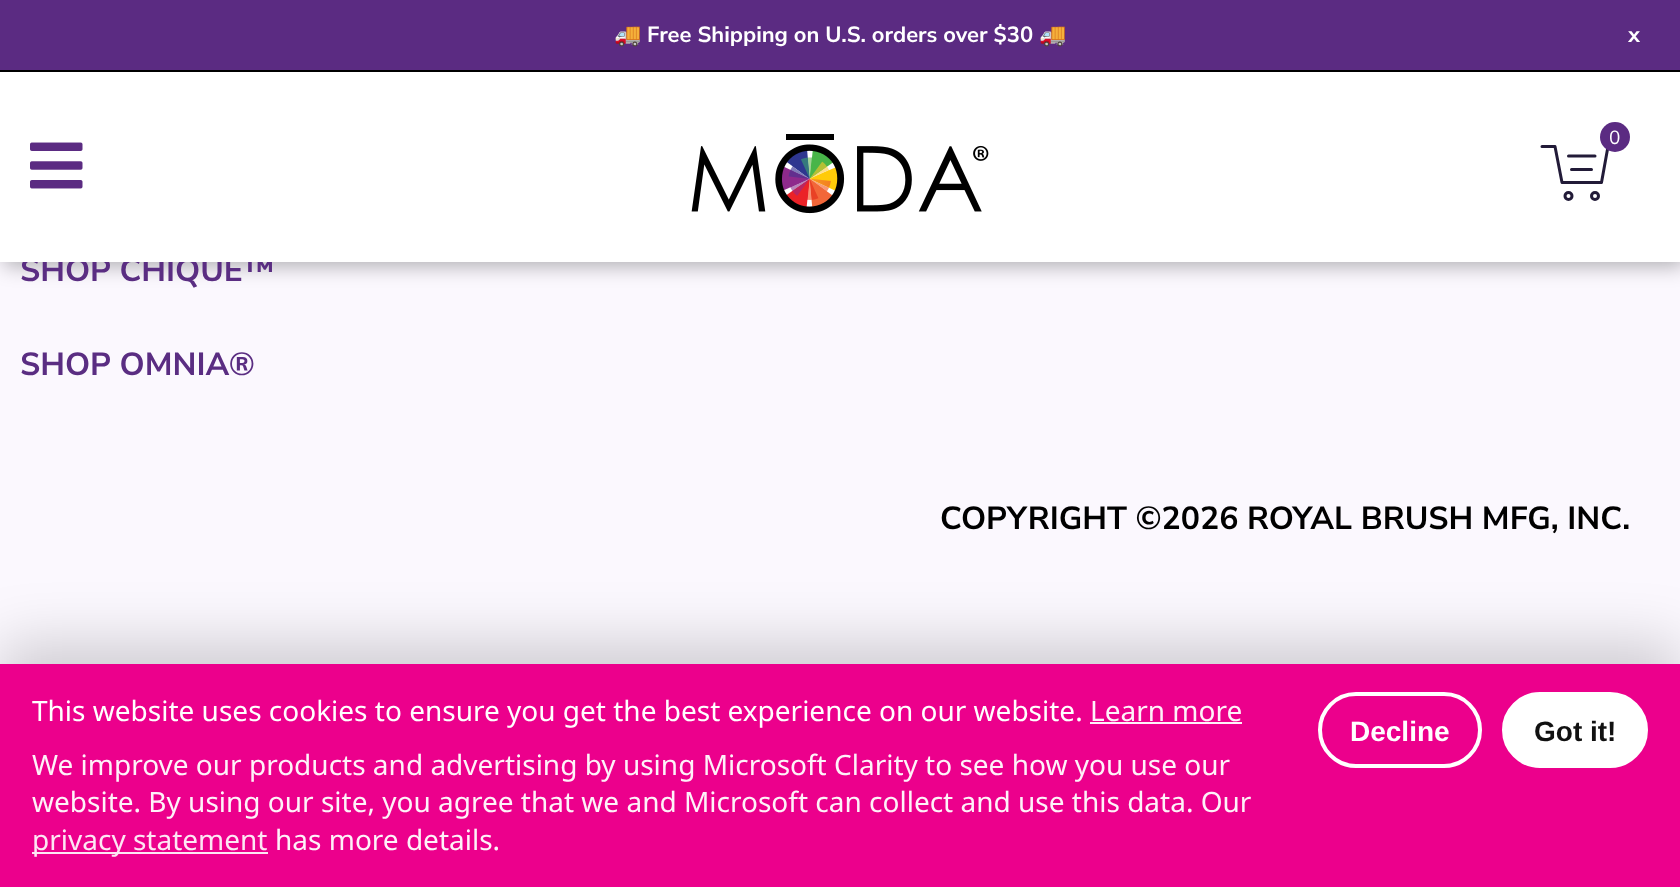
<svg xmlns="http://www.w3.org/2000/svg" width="1680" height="887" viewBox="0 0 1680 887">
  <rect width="100%" height="100%" fill="#fbf8fe"/>
  <path d="M4 4h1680v262H4z" fill="#0000004d" filter="blur(10px)"/>
  <path d="M0 0h1680v70H0z" fill="#5b2b82"/>
  <path d="M0 70h1680v2H0z" fill="#000"/>
  <path d="M0 644h1680v224H0z" fill="#0000002e" filter="blur(30px)"/>
  <path d="M0 664h1680v223H0z" fill="#ec008c"/>
  <path d="M1090 722h152v2H1090z" fill="#fef2f9"/>
  <path d="M32 852h236v2H32z" fill="#fde6f4"/>
  <rect x="1320" y="694" width="160" height="72" rx="36" fill="none" stroke="#fff" stroke-width="4"/>
  <rect x="1504" y="694" width="142" height="72" rx="36" fill="#fff" stroke="#fff" stroke-width="4"/>
  <text x="614" y="42" font-family="Noto Color Emoji" font-size="22" font-weight="bold" fill="#fff">🚚</text>
  <text x="647" y="42" font-family="Nunito Sans" font-size="22" font-weight="bold" fill="#fff">Free Shipping on U.S. orders over $30</text>
  <text x="1039" y="42" font-family="Noto Color Emoji" font-size="22" font-weight="bold" fill="#fff">🚚</text>
  <text x="1628" y="42" font-family="Nunito Sans" font-size="22" font-weight="bold" fill="#fff">x</text>
  <text x="20" y="281" font-family="Nunito Sans" font-size="32" font-weight="bold" fill="#5a2d82">SHOP CHIQUE™</text>
  <path d="M0 72h1680v190H0z" fill="#fff"/>
  <path d="M1542 146.5H1555L1562 182.5H1601.5L1608 146.5" fill="none" stroke="#221b38" stroke-width="3" stroke-linecap="round" stroke-linejoin="round"/>
  <circle cx="1615" cy="137" r="15" fill="#5b2b82"/>
  <text x="1609" y="144" font-family="Nunito Sans" font-size="19" font-weight="200" fill="#fff">0</text>
  <circle cx="1595" cy="196" r="3.5" fill="none" stroke="#221b38" stroke-width="3"/>
  <circle cx="1568.5" cy="196" r="3.5" fill="none" stroke="#221b38" stroke-width="3"/>
  <path d="M1568.5 156H1595M1571.5 169.5H1591.5" fill="none" stroke="#221b38" stroke-width="3" stroke-linecap="round" stroke-linejoin="round"/>
  <image x="691" y="134" width="298" height="80" href="img/2.png"/>
  <image x="30" y="142" width="53" height="47" href="img/1.png"/>
  <text x="20" y="375" font-family="Nunito Sans" font-size="32" font-weight="bold" fill="#5a2d82">SHOP OMNIA®</text>
  <text x="940" y="529" font-family="Nunito Sans" font-size="32" font-weight="bold" fill="#000">COPYRIGHT ©2026 ROYAL BRUSH MFG, INC.</text>
  <text x="32" y="721" font-family="Noto Sans" font-size="28" fill="#fff">This website uses cookies to ensure you get the best experience on our website.</text>
  <g font-family="Noto Sans" font-size="28" fill="#fef2f9">
    <text x="1090" y="721">Learn more</text>
    <text x="32" y="775">We improve our products and advertising by using Microsoft Clarity to see how you use our</text>
    <text x="32" y="812">website. By using our site, you agree that we and Microsoft can collect and use this data. Our</text>
  </g>
  <text x="32" y="850" font-family="Noto Sans" font-size="28" fill="#fde6f4">privacy statement</text>
  <text x="275" y="850" font-family="Noto Sans" font-size="28" fill="#fef2f9">has more details.</text>
  <text x="1350" y="741" font-family="Liberation Sans" font-size="28" font-weight="bold" fill="#fff">Decline</text>
  <text x="1534" y="741" font-family="Liberation Sans" font-size="28" font-weight="bold" fill="#111">Got it!</text>
</svg>
